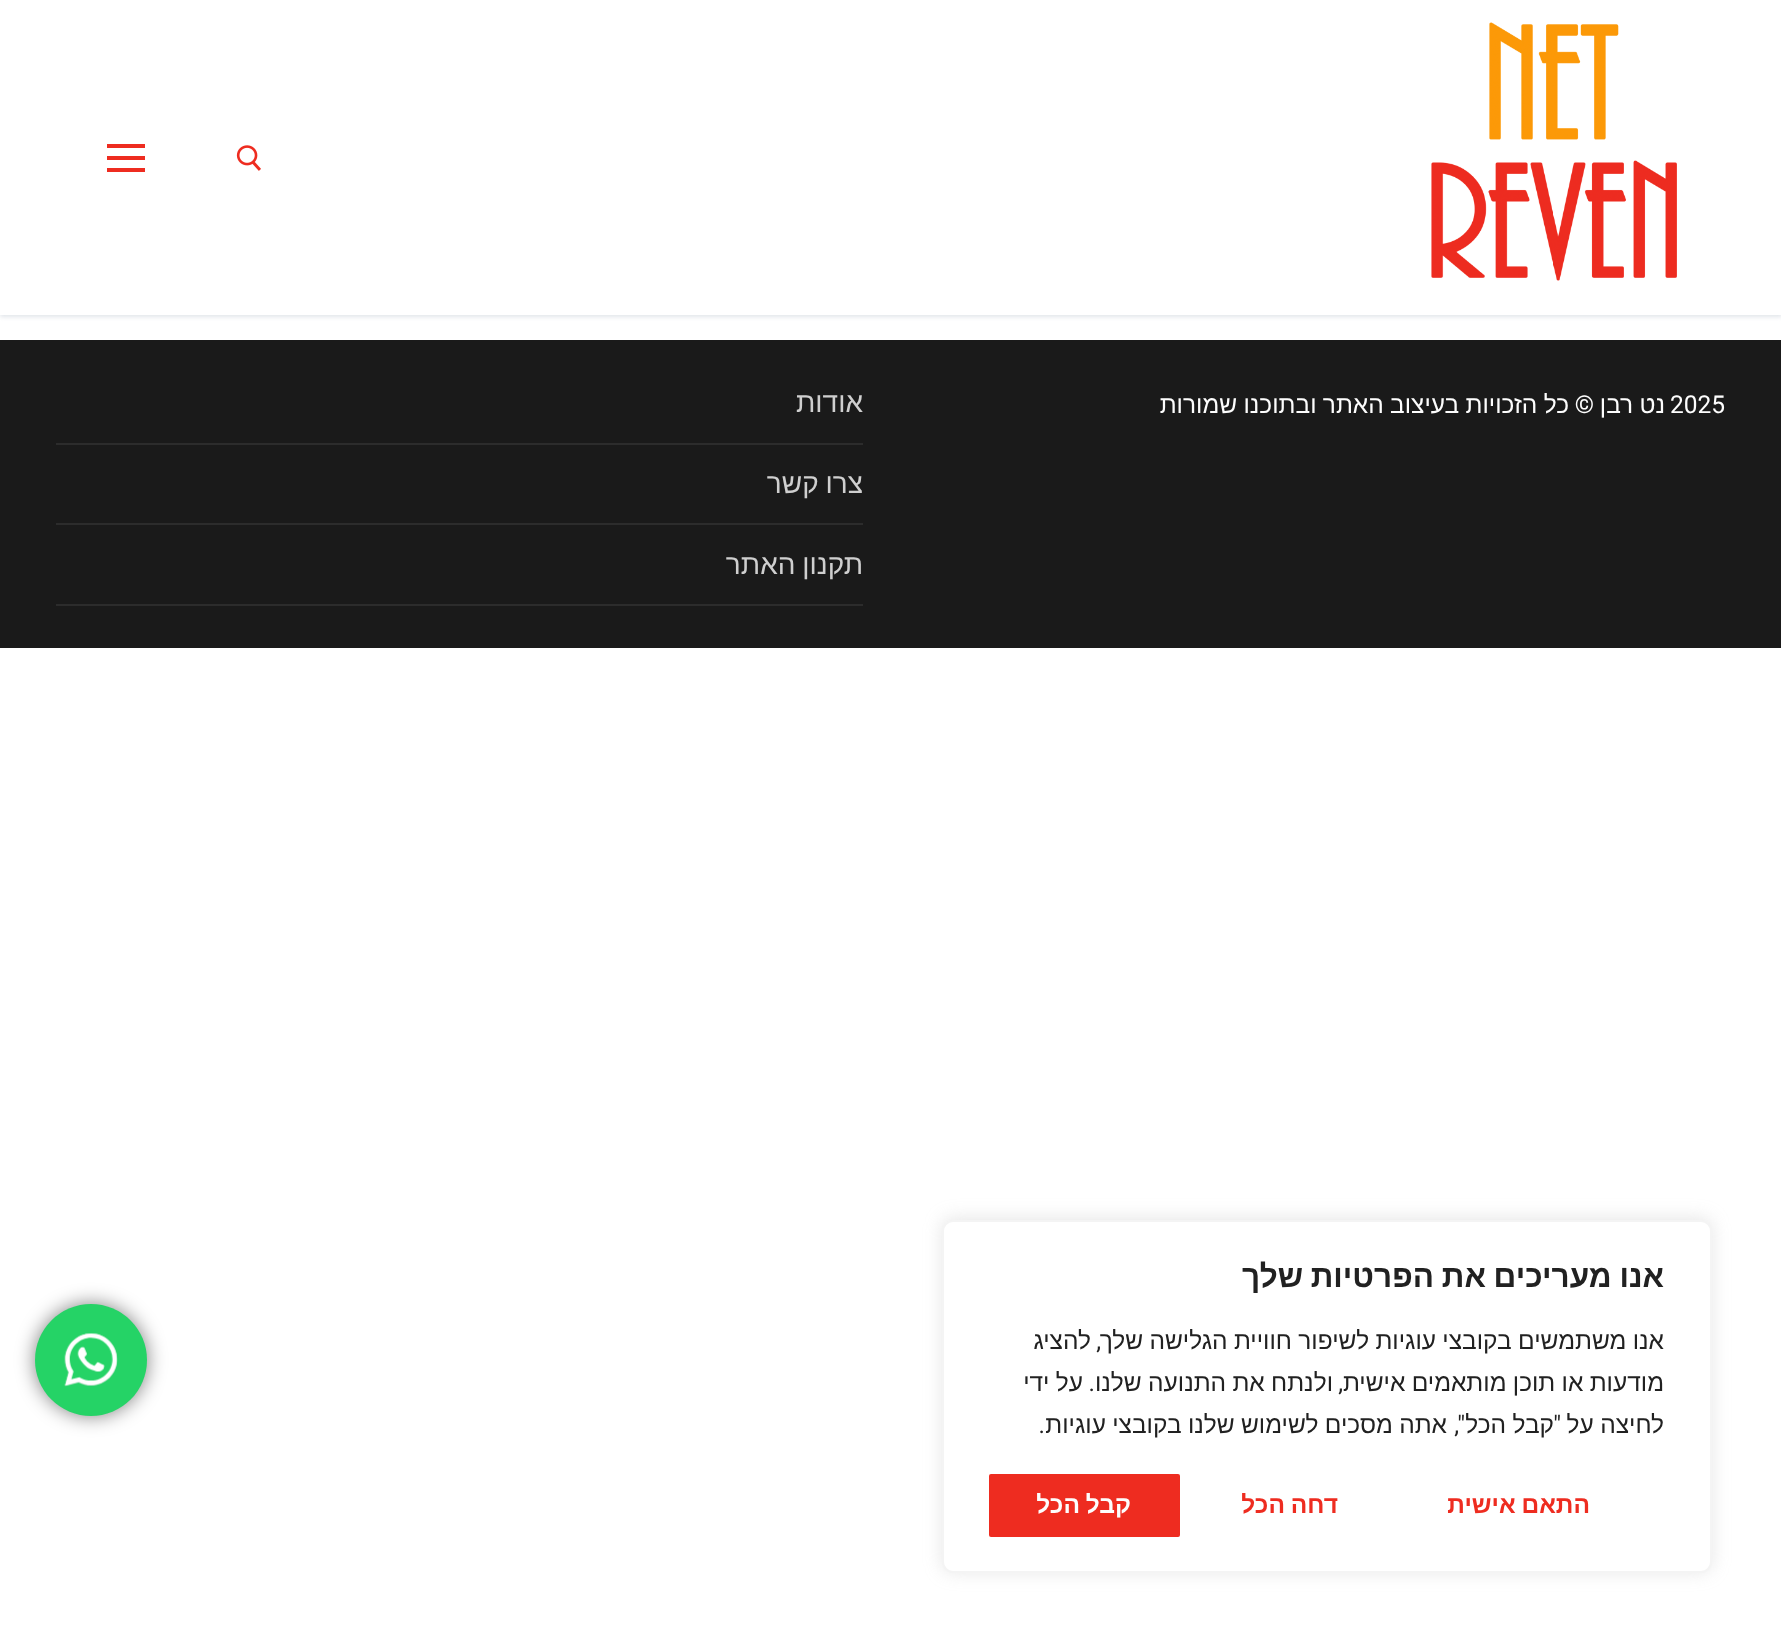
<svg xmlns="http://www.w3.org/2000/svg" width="1781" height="1643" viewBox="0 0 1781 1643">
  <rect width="100%" height="100%" fill="#fff"/>
  <path d="M0 2h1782v315H0z" fill="#e1e5ea" filter="blur(2px)"/>
  <path d="M0 0h1781v315H0z" fill="#fff"/>
  <image x="1431" y="22" width="246" height="259" href="img/1.png"/>
  <image x="236" y="145" width="25" height="26" href="img/2.png"/>
  <path d="M107 156h38v4H107z" fill="#ee2c20"/>
  <path d="M107 144h38v4H107z" fill="#ee2c20"/>
  <path d="M107 168h38v4H107z" fill="#ee2c20"/>
  <path d="M0 340h1781v308H0z" fill="#1a1a1a"/>
  <path d="M56 443h807v2H56z" fill="#2c2c2c"/>
  <path d="M56 523h807v2H56z" fill="#2c2c2c"/>
  <path d="M56 604h807v2H56z" fill="#2c2c2c"/>
  <rect x="942" y="1218" width="770" height="354" rx="11" fill="#acabab4d" filter="blur(9px)"/>
  <rect x="943" y="1221" width="768" height="351" rx="10" fill="#fff" stroke="#f4f4f4" stroke-width="2"/>
  <rect x="989" y="1474" width="191" height="63" rx="2" fill="#ee2c20"/>
  <rect x="35" y="1304" width="112" height="112" rx="56" fill="#00000080" filter="blur(9.5px)"/>
  <circle cx="91" cy="1360" r="56" fill="#25d366"/>
  <image x="64" y="1333" width="54" height="54" href="img/3.png"/>
  <text x="1670" y="413" font-family="Roboto" font-size="24.5" fill="#fdfdfd">2025</text>
  <text x="1665" y="413" word-spacing="-0.5" font-family="Liberation Sans" font-size="24.5" direction="rtl" fill="#fdfdfd">נט רבן</text>
  <text x="1594" y="413" font-family="Roboto" font-size="24.5" direction="rtl" fill="#fdfdfd">©</text>
  <text x="1569" y="413" word-spacing="-0.5" font-family="Liberation Sans" font-size="24.5" direction="rtl" fill="#fdfdfd">כל הזכויות בעיצוב האתר ובתוכנו שמורות</text>
  <g font-family="Liberation Sans" font-size="28" direction="rtl" fill="#cfcfcf">
    <text x="863" y="412">אודות</text>
    <text x="863" y="493" word-spacing="-1">צרו קשר</text>
    <text x="863" y="574" word-spacing="-1">תקנון האתר</text>
  </g>
  <text x="1664" y="1287" word-spacing="-1" font-family="Liberation Sans" font-size="31.5" font-weight="bold" direction="rtl" fill="#212121">אנו מעריכים את הפרטיות שלך</text>
  <text x="1664" y="1349" word-spacing="-0.5" font-family="Liberation Sans" font-size="24.5" direction="rtl" fill="#212121">אנו משתמשים בקובצי עוגיות לשיפור חוויית הגלישה שלך</text>
  <text x="1101" y="1349" font-family="Roboto" font-size="24.5" direction="rtl" fill="#212121">,</text>
  <g font-family="Liberation Sans" font-size="24.5" direction="rtl" fill="#212121">
    <text x="1091" y="1349">להציג</text>
    <text x="1664" y="1391" word-spacing="-0.5">מודעות או תוכן מותאמים אישית</text>
  </g>
  <text x="1343" y="1391" font-family="Roboto" font-size="24.5" direction="rtl" fill="#212121">,</text>
  <text x="1333" y="1391" word-spacing="-0.5" font-family="Liberation Sans" font-size="24.5" direction="rtl" fill="#212121">ולנתח את התנועה שלנו</text>
  <text x="1095" y="1391" font-family="Roboto" font-size="24.5" direction="rtl" fill="#212121">.</text>
  <g font-family="Liberation Sans" font-size="24.5" direction="rtl" fill="#212121">
    <text x="1083" y="1391" word-spacing="-0.5">על ידי</text>
    <text x="1664" y="1433" word-spacing="-0.5">לחיצה על</text>
  </g>
  <text x="1561" y="1433" font-family="Roboto" font-size="24.5" direction="rtl" fill="#212121">"</text>
  <text x="1554" y="1433" word-spacing="-0.5" font-family="Liberation Sans" font-size="24.5" direction="rtl" fill="#212121">קבל הכל</text>
  <text x="1465" y="1433" font-family="Roboto" font-size="24.5" direction="rtl" fill="#212121">",</text>
  <text x="1447" y="1433" word-spacing="-0.5" font-family="Liberation Sans" font-size="24.5" direction="rtl" fill="#212121">אתה מסכים לשימוש שלנו בקובצי עוגיות</text>
  <text x="1045" y="1433" font-family="Roboto" font-size="24.5" direction="rtl" fill="#212121">.</text>
  <g font-family="Liberation Sans" font-size="24.5" font-weight="bold" direction="rtl" fill="#ee2c20">
    <text x="1590" y="1513" word-spacing="-1">התאם אישית</text>
    <text x="1338" y="1513" word-spacing="-1">דחה הכל</text>
  </g>
  <text x="1131" y="1513" word-spacing="-1" font-family="Liberation Sans" font-size="24.5" font-weight="bold" direction="rtl" fill="#fdfdfd">קבל הכל</text>
</svg>
